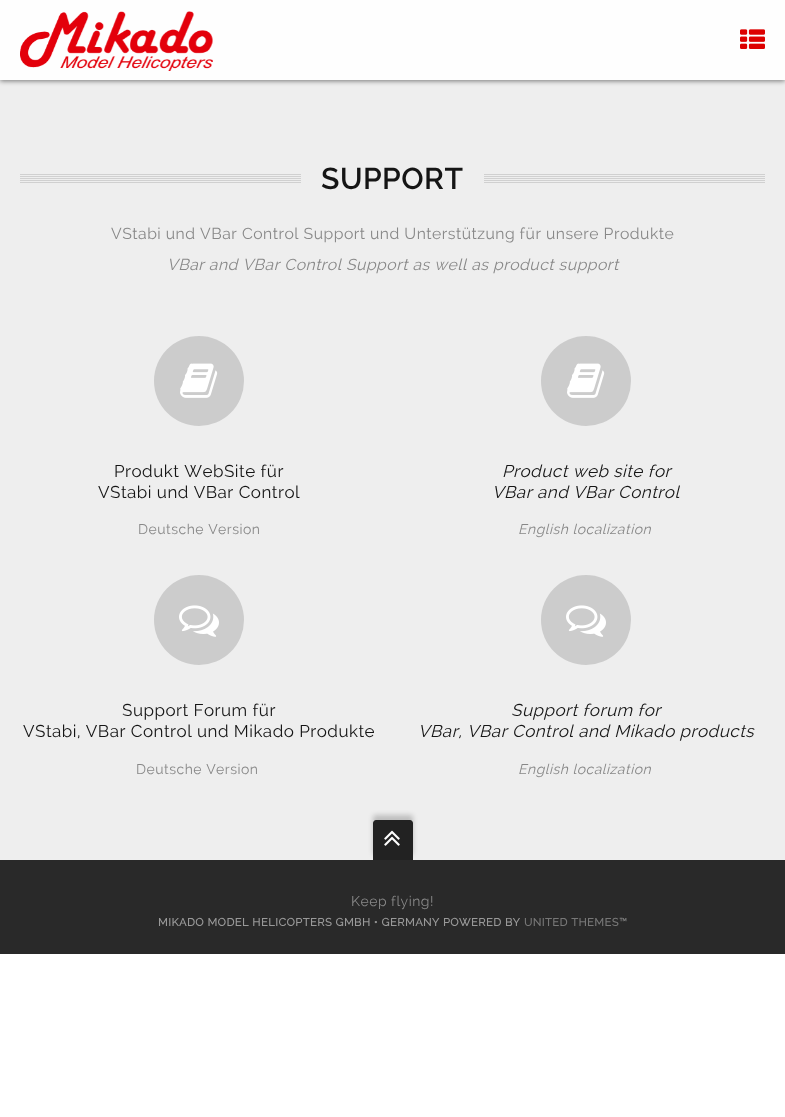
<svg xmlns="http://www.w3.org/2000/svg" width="785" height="1117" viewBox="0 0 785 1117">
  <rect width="100%" height="100%" fill="#fff"/>
  <path d="M0 80h785v780H0z" fill="#eee"/>
  <path d="M0 1h785v80H0z" fill="#00000080" filter="blur(2.5px)"/>
  <path d="M0 0h785v80H0z" fill="#fefefe"/>
  <image x="20" y="11" width="193" height="60" href="img/1.png"/>
  <image x="740" y="29" width="25" height="20" href="img/2.png"/>
  <image x="20" y="174" width="745" height="9" href="img/3.png"/>
  <path d="M301 174h183v9H301z" fill="#eee"/>
  <circle cx="199" cy="381" r="45" fill="#ccc"/>
  <image x="180" y="363" width="38" height="35" href="img/4.png"/>
  <circle cx="586" cy="381" r="45" fill="#ccc"/>
  <image x="567" y="363" width="38" height="35" href="img/4.png"/>
  <circle cx="199" cy="620" r="45" fill="#ccc"/>
  <image x="179" y="605" width="40" height="32" href="img/5.png"/>
  <circle cx="586" cy="620" r="45" fill="#ccc"/>
  <image x="566" y="605" width="40" height="32" href="img/5.png"/>
  <path d="M0 860h785v94H0z" fill="#292929"/>
  <rect x="373" y="815" width="40" height="40" rx="3" fill="#00000033" filter="blur(2.5px)"/>
  <path d="M376 820H410C411.5 820 413 821.5 413 823V860H373V823C373 821.5 374.5 820 376 820Z" fill="#222"/>
  <image x="384" y="830" width="16" height="16" href="img/6.png"/>
  <text x="321" y="189" font-family="Raleway" font-size="30" font-weight="600" letter-spacing="0.5" fill="#151515">SUPPORT</text>
  <text x="111" y="239" font-family="Raleway" font-size="15.75" letter-spacing="0.5" fill="#888">VStabi und VBar Control Support und Unterstützung für unsere Produkte</text>
  <text x="167" y="270" font-family="Raleway" font-size="15.75" font-style="italic" letter-spacing="0.5" fill="#888">VBar and VBar Control Support as well as product support</text>
  <g font-family="Raleway" font-size="17" letter-spacing="0.5" fill="#151515">
    <text x="114" y="477">Produkt WebSite für</text>
    <text x="98" y="498">VStabi und VBar Control</text>
  </g>
  <text x="138" y="534" font-family="Raleway" font-size="14" letter-spacing="0.5" fill="#888">Deutsche Version</text>
  <g font-family="Raleway" font-size="17" font-style="italic" letter-spacing="0.5" fill="#151515">
    <text x="502" y="477">Product web site for</text>
    <text x="492" y="498">VBar and VBar Control</text>
  </g>
  <text x="518" y="534" font-family="Raleway" font-size="14" font-style="italic" letter-spacing="0.5" fill="#888">English localization</text>
  <g font-family="Raleway" font-size="17" letter-spacing="0.5" fill="#151515">
    <text x="122" y="716">Support Forum für</text>
    <text x="23" y="737">VStabi, VBar Control und Mikado Produkte</text>
  </g>
  <text x="136" y="774" font-family="Raleway" font-size="14" letter-spacing="0.5" fill="#888">Deutsche Version</text>
  <g font-family="Raleway" font-size="17" font-style="italic" letter-spacing="0.5" fill="#151515">
    <text x="511" y="716">Support forum for</text>
    <text x="418" y="737">VBar, VBar Control and Mikado products</text>
  </g>
  <text x="518" y="774" font-family="Raleway" font-size="14" font-style="italic" letter-spacing="0.5" fill="#888">English localization</text>
  <text x="351" y="906" font-family="Raleway" font-size="14" letter-spacing="0.5" fill="#888">Keep flying!</text>
  <text x="158" y="926" font-family="Raleway" font-size="11" font-weight="bold" letter-spacing="0.5" fill="#999">MIKADO MODEL HELICOPTERS GMBH • GERMANY POWERED BY</text>
  <text x="524" y="926" font-family="Raleway" font-size="11" font-weight="bold" letter-spacing="0.5" fill="#777">UNITED THEMES™</text>
</svg>
